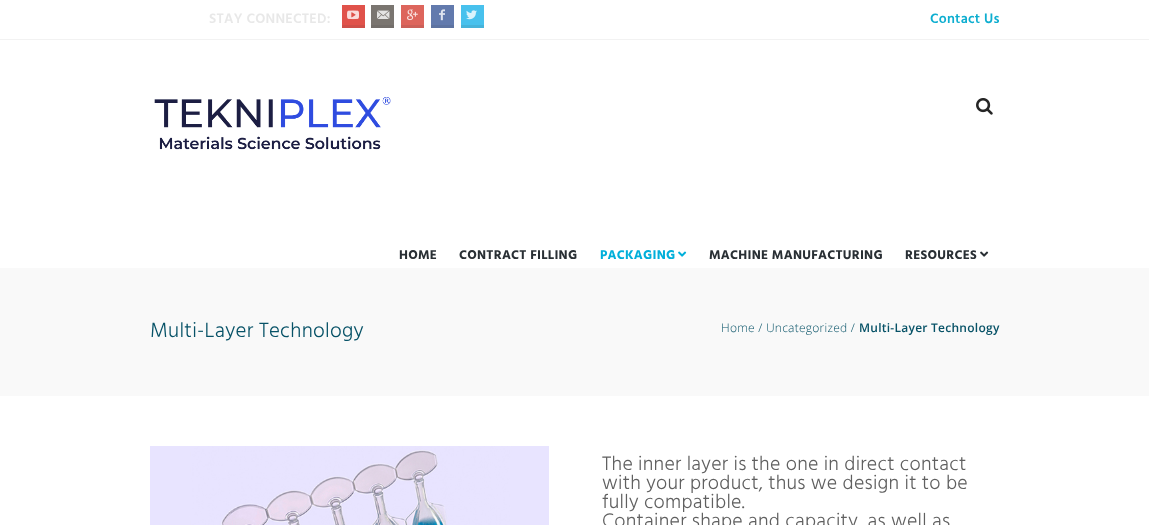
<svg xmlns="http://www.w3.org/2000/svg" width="1149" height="525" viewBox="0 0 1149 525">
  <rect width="100%" height="100%" fill="#fff"/>
  <path d="M0 39h1149v1H0z" fill="#f2f2f2"/>
  <path d="M342 5h23v20H342z" fill="#e0524a"/>
  <image x="347" y="10" width="12" height="10" href="img/1.png"/>
  <path d="M342 25h23v3H342z" fill="#cf4f48"/>
  <path d="M371 5h23v20H371z" fill="#7a7570"/>
  <image x="377" y="10" width="13" height="9" href="img/2.png"/>
  <path d="M371 25h23v3H371z" fill="#736e6a"/>
  <path d="M401 5h23v20H401z" fill="#dd655c"/>
  <image x="407" y="9" width="11" height="12" href="img/3.png"/>
  <path d="M401 25h23v3H401z" fill="#cc6058"/>
  <path d="M431 5h23v20H431z" fill="#627aad"/>
  <image x="439" y="9" width="6" height="12" href="img/4.png"/>
  <path d="M431 25h23v3H431z" fill="#5d73a1"/>
  <path d="M461 5h23v20H461z" fill="#48c1ed"/>
  <image x="466" y="10" width="11" height="10" href="img/5.png"/>
  <path d="M461 25h23v3H461z" fill="#46b3da"/>
  <image x="154" y="97" width="237" height="53" href="img/6.png"/>
  <image x="976" y="98" width="17" height="17" href="img/7.png"/>
  <image x="678" y="251" width="9" height="6" href="img/8.png"/>
  <image x="980" y="251" width="9" height="6" href="img/9.png"/>
  <path d="M0 268h1149v128H0z" fill="#f9f9f9"/>
  <image x="150" y="446" width="399" height="79" href="img/10.png"/>
  <text x="209" y="23" font-family="Hind" font-size="14" font-weight="600" letter-spacing="0.25" fill="#e8e8e8">STAY CONNECTED:</text>
  <text x="930" y="23" font-family="Hind" font-size="14" font-weight="600" letter-spacing="0.25" fill="#0eaed0">Contact Us</text>
  <g font-family="Hind" font-size="13" font-weight="bold" letter-spacing="0.25" fill="#292f34">
    <text x="399" y="259">HOME</text>
    <text x="459" y="259">CONTRACT FILLING</text>
  </g>
  <text x="600" y="259" font-family="Hind" font-size="13" font-weight="bold" letter-spacing="0.25" fill="#00afda">PACKAGING</text>
  <g font-family="Hind" font-size="13" font-weight="bold" letter-spacing="0.25" fill="#292f34">
    <text x="709" y="259">MACHINE MANUFACTURING</text>
    <text x="905" y="259">RESOURCES</text>
  </g>
  <text x="150" y="337" font-family="Hind" font-size="21" font-weight="300" letter-spacing="0.25" fill="#075267">Multi-Layer Technology</text>
  <text x="721" y="332" font-family="Open Sans" font-size="12" font-weight="300" letter-spacing="0.25" fill="#075267">Home / Uncategorized /</text>
  <text x="859" y="332" font-family="Open Sans" font-size="12" font-weight="600" letter-spacing="0.25" fill="#075267">Multi-Layer Technology</text>
  <g font-family="Hind" font-size="20" font-weight="300" letter-spacing="0.25" fill="#606060">
    <text x="602" y="470">The inner layer is the one in direct contact</text>
    <text x="602" y="489">with your product, thus we design it to be</text>
    <text x="602" y="508">fully compatible.</text>
    <text x="602" y="527">Container shape and capacity, as well as</text>
  </g>
</svg>
